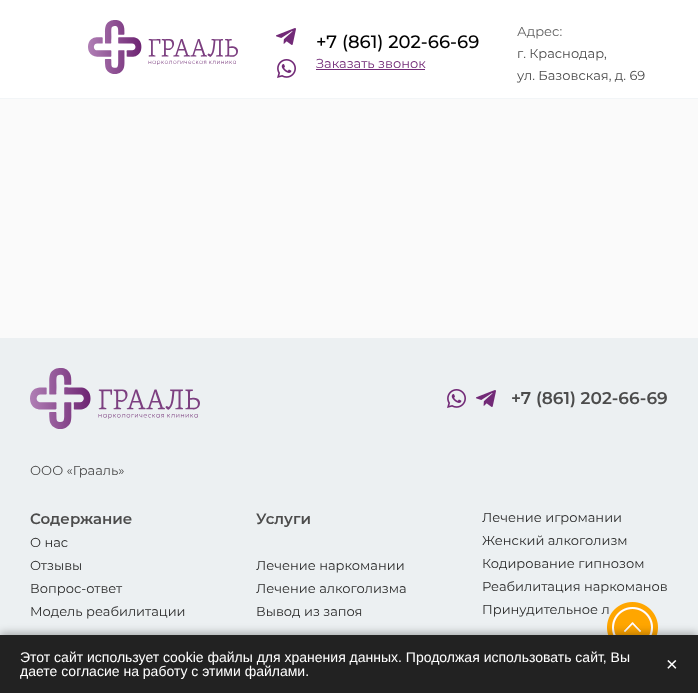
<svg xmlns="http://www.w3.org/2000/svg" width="698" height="693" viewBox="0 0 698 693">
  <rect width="100%" height="100%" fill="#fafafa"/>
  <path d="M0 0h698v98H0z" fill="#fff"/>
  <path d="M0 98h698v1H0z" fill="#f2f5f7"/>
  <image x="88" y="20" width="150" height="54" href="img/1.png"/>
  <image x="276" y="28" width="20" height="17" href="img/2.png"/>
  <image x="277" y="59" width="19" height="19" href="img/3.png"/>
  <path d="M316 69h109v1H316z" fill="#722a77"/>
  <path d="M0 338h698v297H0z" fill="#ecf0f2"/>
  <image x="30" y="368" width="170" height="61" href="img/4.png"/>
  <image x="447" y="389" width="19" height="19" href="img/5.png"/>
  <image x="476" y="390" width="20" height="17" href="img/6.png"/>
  <text x="316" y="48" font-family="Montserrat" font-size="18" font-weight="500" fill="#000">+7 (861) 202-66-69</text>
  <text x="316" y="68" font-family="Montserrat" font-size="13" fill="#722a77">Заказать звонок</text>
  <text x="517" y="36" font-family="Montserrat" font-size="13" fill="#626262">Адрес:</text>
  <g font-family="Montserrat" font-size="13" fill="#4c4c4c">
    <text x="517" y="58">г. Краснодар,</text>
    <text x="517" y="80">ул. Базовская, д. 69</text>
  </g>
  <text x="511" y="404" font-family="Montserrat" font-size="17" font-weight="600" fill="#4c4c4c">+7 (861) 202-66-69</text>
  <text x="30" y="475" font-family="Montserrat" font-size="13" fill="#4c4c4c">ООО «Грааль»</text>
  <text x="30" y="524" font-family="Montserrat" font-size="15" font-weight="600" fill="#4c4c4c">Содержание</text>
  <g font-family="Montserrat" font-size="13" fill="#2c2c2c">
    <text x="30" y="547">О нас</text>
    <text x="30" y="570">Отзывы</text>
    <text x="30" y="593">Вопрос-ответ</text>
    <text x="30" y="616">Модель реабилитации</text>
  </g>
  <text x="256" y="524" font-family="Montserrat" font-size="15" font-weight="600" fill="#4c4c4c">Услуги</text>
  <g font-family="Montserrat" font-size="13" fill="#2c2c2c">
    <text x="256" y="570">Лечение наркомании</text>
    <text x="256" y="593">Лечение алкоголизма</text>
    <text x="256" y="616">Вывод из запоя</text>
    <text x="482" y="522">Лечение игромании</text>
    <text x="482" y="545">Женский алкоголизм</text>
    <text x="482" y="568">Кодирование гипнозом</text>
    <text x="482" y="591">Реабилитация наркоманов</text>
    <text x="482" y="614">Принудительное л</text>
  </g>
  <image x="607" y="602" width="51" height="33" href="img/7.png"/>
  <path d="M0 633h698v58H0z" fill="#0000004d" filter="blur(4px)"/>
  <path d="M0 635h698v58H0z" fill="#222"/>
  <g font-family="Liberation Sans" font-size="14" fill="#fff">
    <text x="20" y="662">Этот сайт использует cookie файлы для хранения данных. Продолжая использовать сайт, Вы</text>
    <text x="20" y="676">даете согласие на работу с этими файлами.</text>
  </g>
  <text x="666" y="671" font-family="Liberation Sans" font-size="20" fill="#fff">×</text>
</svg>
